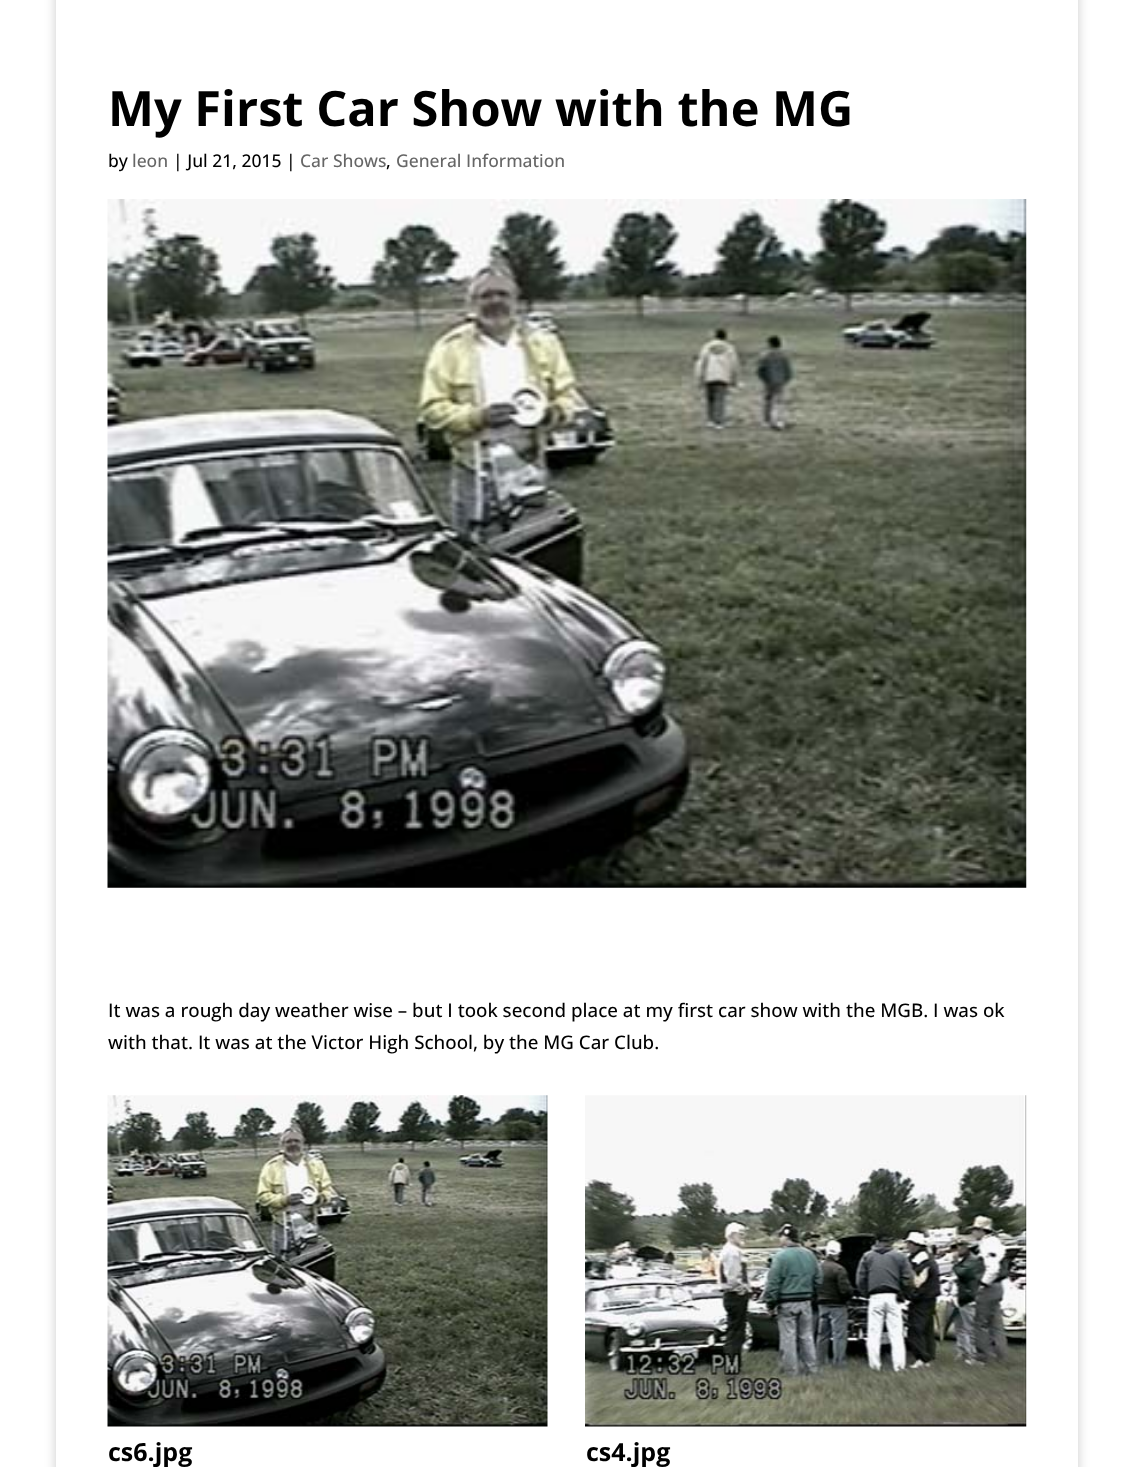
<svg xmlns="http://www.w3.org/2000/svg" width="1133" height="1467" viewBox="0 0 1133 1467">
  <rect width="100%" height="100%" fill="#fff"/>
  <path d="M56 -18h1022v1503H56z" fill="#00000033" filter="blur(6px)"/>
  <path d="M56 0h1022v1467H56z" fill="#fff"/>
  <image x="107" y="199" width="920" height="689" href="img/1.png"/>
  <image x="107" y="1095" width="441" height="332" href="img/2.png"/>
  <image x="585" y="1095" width="442" height="332" href="img/3.png"/>
  <text x="108" y="126" font-family="Open Sans" font-size="48.75" font-weight="bold" fill="#000">My First Car Show with the MG</text>
  <text x="108" y="167" font-family="Open Sans" font-size="17.5" font-weight="500" fill="#000">by</text>
  <text x="132" y="167" font-family="Open Sans" font-size="17.5" font-weight="500" fill="#666">leon</text>
  <text x="173" y="167" font-family="Open Sans" font-size="17.5" font-weight="500" fill="#000">| Jul 21, 2015 |</text>
  <text x="300" y="167" font-family="Open Sans" font-size="17.5" font-weight="500" fill="#666">Car Shows</text>
  <text x="386" y="167" font-family="Open Sans" font-size="17.5" font-weight="500" fill="#000">,</text>
  <text x="396" y="167" font-family="Open Sans" font-size="17.5" font-weight="500" fill="#666">General Information</text>
  <g font-family="Open Sans" font-size="18.75" font-weight="500" fill="#000">
    <text x="108" y="1017">It was a rough day weather wise – but I took second place at my first car show with the MGB. I was ok</text>
    <text x="108" y="1049">with that. It was at the Victor High School, by the MG Car Club.</text>
  </g>
  <g font-family="Open Sans" font-size="25" font-weight="bold" fill="#000">
    <text x="108" y="1461">cs6.jpg</text>
    <text x="586" y="1461">cs4.jpg</text>
  </g>
</svg>
